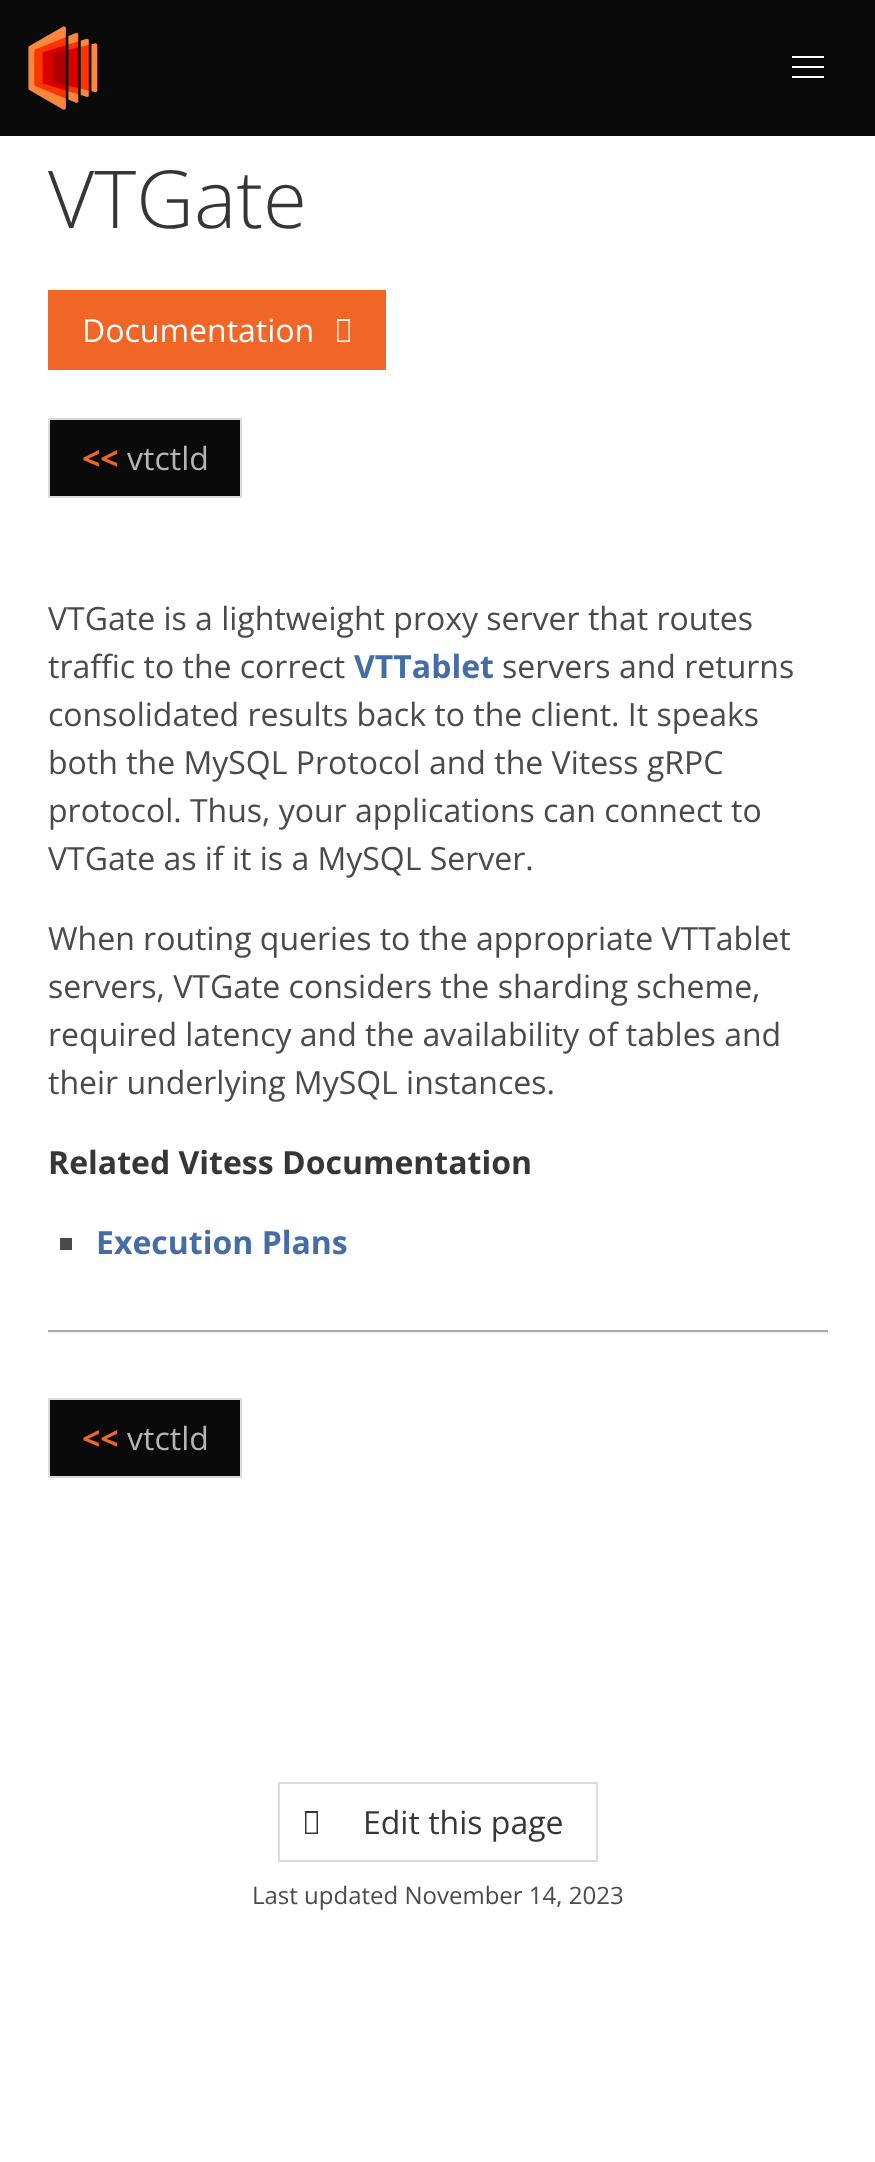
<svg xmlns="http://www.w3.org/2000/svg" width="875" height="2162" viewBox="0 0 875 2162">
  <rect width="100%" height="100%" fill="#fff"/>
  <path d="M0 0h875v136H0z" fill="#0a0a0a"/>
  <image x="28" y="26" width="70" height="84" href="img/1.png"/>
  <path d="M792 56h32v2H792z" fill="#fff"/>
  <path d="M792 66h32v2H792z" fill="#fff"/>
  <path d="M792 76h32v2H792z" fill="#fff"/>
  <path d="M48 290h338v80H48z" fill="#f16626"/>
  <path d="M337 342V319H350V342ZM338.5 340.5H348.5V321H338.5Z" fill="#fff"/>
  <path d="M49 419h192v78H49z" fill="#0a0a0a" stroke="#dbdbdb" stroke-width="2"/>
  <path d="M60 1238h12v12H60z" fill="#4a4a4a"/>
  <path d="M48 1332h780v2H48z" fill="#f5f5f5"/>
  <path d="M48 1330h780v2H48z" fill="#a9a9a9"/>
  <path d="M49 1399h192v78H49z" fill="#0a0a0a" stroke="#dbdbdb" stroke-width="2"/>
  <path d="M279 1783h318v78H279z" fill="none" stroke="#dbdbdb" stroke-width="2"/>
  <path d="M305 1834V1811H318V1834ZM306.5 1832.5H316.5V1813H306.5Z" fill="#363636"/>
  <text x="48" y="228" font-family="Open Sans" font-size="80" font-weight="300" fill="#363636">VTGate</text>
  <text x="82" y="342" font-family="Open Sans" font-size="32" fill="#fff">Documentation</text>
  <text x="82" y="470" font-family="Open Sans" font-size="32" font-weight="bold" fill="#f16626">&lt;&lt;</text>
  <text x="127" y="470" font-family="Open Sans" font-size="32" fill="#b5b5b5">vtctld</text>
  <g font-family="Open Sans" font-size="32" fill="#4a4a4a">
    <text x="48" y="630">VTGate is a lightweight proxy server that routes</text>
    <text x="48" y="678">traffic to the correct</text>
  </g>
  <text x="354" y="678" font-family="Open Sans" font-size="32" font-weight="bold" fill="#446ca9">VTTablet</text>
  <g font-family="Open Sans" font-size="32" fill="#4a4a4a">
    <text x="502" y="678">servers and returns</text>
    <text x="48" y="726">consolidated results back to the client. It speaks</text>
    <text x="48" y="774">both the MySQL Protocol and the Vitess gRPC</text>
    <text x="48" y="822">protocol. Thus, your applications can connect to</text>
    <text x="48" y="870">VTGate as if it is a MySQL Server.</text>
    <text x="48" y="950">When routing queries to the appropriate VTTablet</text>
    <text x="48" y="998">servers, VTGate considers the sharding scheme,</text>
    <text x="48" y="1046">required latency and the availability of tables and</text>
    <text x="48" y="1094">their underlying MySQL instances.</text>
  </g>
  <text x="48" y="1174" font-family="Open Sans" font-size="32" font-weight="bold" fill="#363636">Related Vitess Documentation</text>
  <text x="96" y="1254" font-family="Open Sans" font-size="32" font-weight="bold" fill="#446ca9">Execution Plans</text>
  <text x="82" y="1450" font-family="Open Sans" font-size="32" font-weight="bold" fill="#f16626">&lt;&lt;</text>
  <text x="127" y="1450" font-family="Open Sans" font-size="32" fill="#b5b5b5">vtctld</text>
  <text x="363" y="1834" font-family="Open Sans" font-size="32" fill="#363636">Edit this page</text>
  <text x="252" y="1904" font-family="Open Sans" font-size="24" fill="#4a4a4a">Last updated November 14, 2023</text>
</svg>
